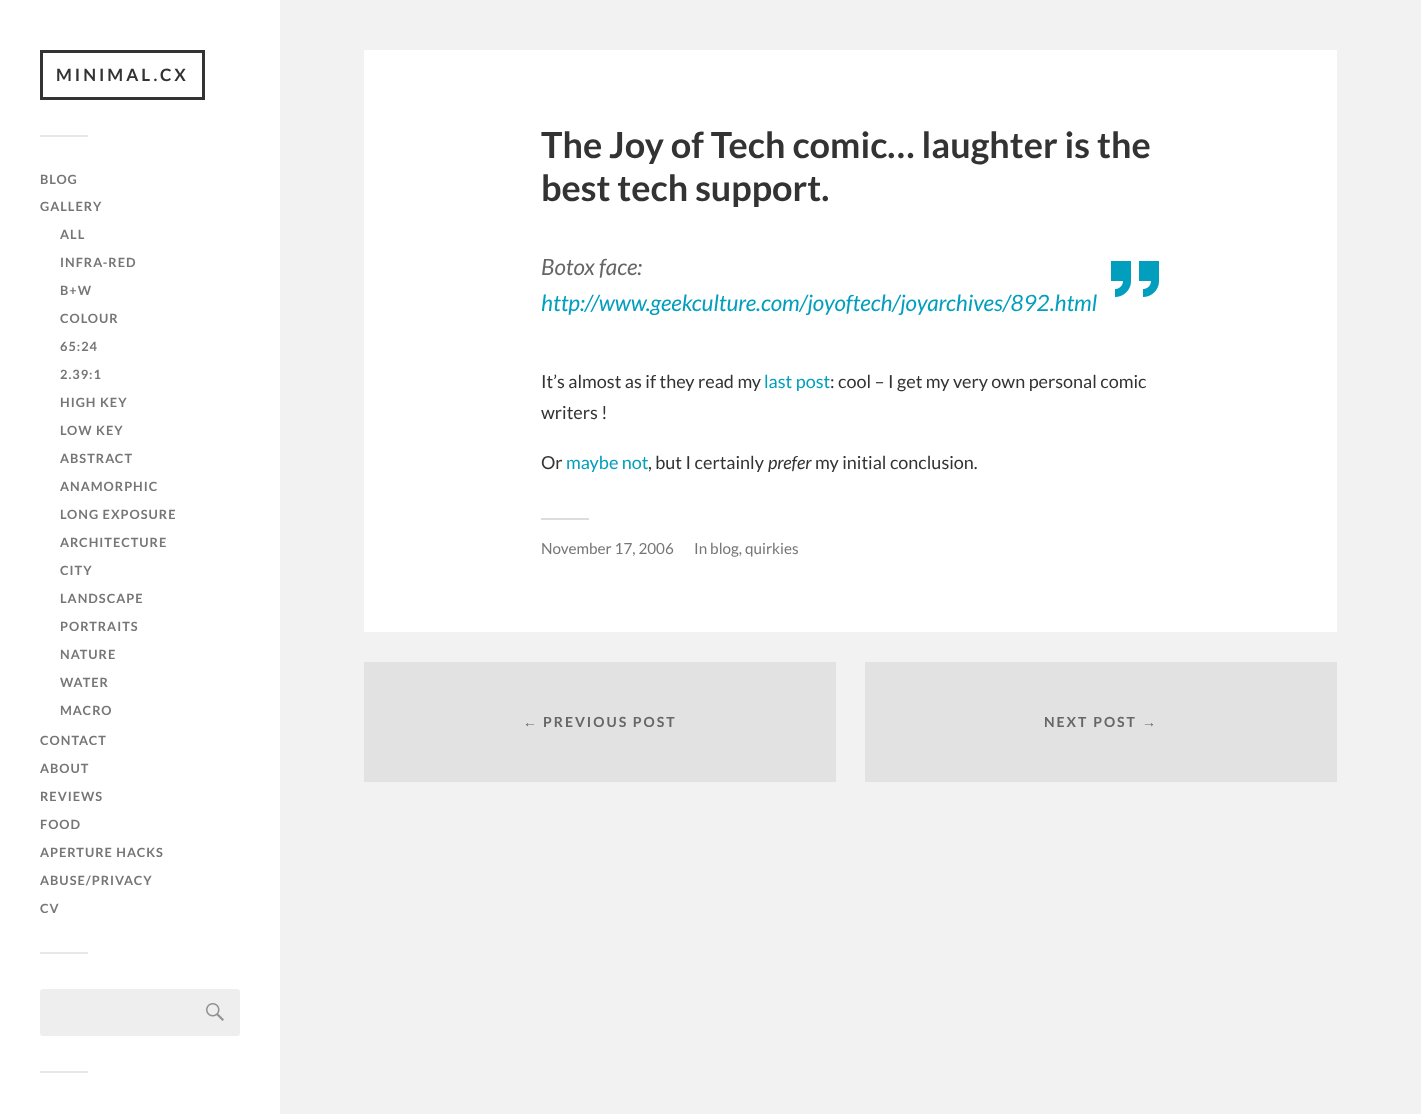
<svg xmlns="http://www.w3.org/2000/svg" width="1421" height="1114" viewBox="0 0 1421 1114">
  <rect width="100%" height="100%" fill="#f2f2f2"/>
  <path d="M0 0h280v1114H0z" fill="#fff"/>
  <path d="M41.5 51.5h162v47H41.5z" fill="none" stroke="#333" stroke-width="3"/>
  <path d="M40 135h48v2H40z" fill="#e7e7e7"/>
  <path d="M40 952h48v2H40z" fill="#e7e7e7"/>
  <rect x="40" y="989" width="200" height="47" rx="3" fill="#eee"/>
  <image x="206" y="1003" width="18" height="18" href="img/1.png"/>
  <path d="M40 1071h48v2H40z" fill="#e7e7e7"/>
  <path d="M364 50h973v582H364z" fill="#fff"/>
  <image x="1111" y="261" width="48" height="36" href="img/2.png"/>
  <path d="M541 518h48v2H541z" fill="#ddd"/>
  <path d="M364 662h472v120H364z" fill="#e2e2e2"/>
  <path d="M865 662h472v120H865z" fill="#e2e2e2"/>
  <text x="56" y="81" font-family="Lato" font-size="17" font-weight="bold" letter-spacing="3" fill="#333">MINIMAL.CX</text>
  <g font-family="Lato" font-size="12.75" font-weight="bold" letter-spacing="1" fill="#767676">
    <text x="40" y="184">BLOG</text>
    <text x="40" y="211">GALLERY</text>
    <text x="60" y="239">ALL</text>
    <text x="60" y="267">INFRA-RED</text>
    <text x="60" y="295">B+W</text>
    <text x="60" y="323">COLOUR</text>
    <text x="60" y="351">65:24</text>
    <text x="60" y="379">2.39:1</text>
    <text x="60" y="407">HIGH KEY</text>
    <text x="60" y="435">LOW KEY</text>
    <text x="60" y="463">ABSTRACT</text>
    <text x="60" y="491">ANAMORPHIC</text>
    <text x="60" y="519">LONG EXPOSURE</text>
    <text x="60" y="547">ARCHITECTURE</text>
    <text x="60" y="575">CITY</text>
    <text x="60" y="603">LANDSCAPE</text>
    <text x="60" y="631">PORTRAITS</text>
    <text x="60" y="659">NATURE</text>
    <text x="60" y="687">WATER</text>
    <text x="60" y="715">MACRO</text>
    <text x="40" y="745">CONTACT</text>
    <text x="40" y="773">ABOUT</text>
    <text x="40" y="801">REVIEWS</text>
    <text x="40" y="829">FOOD</text>
    <text x="40" y="857">APERTURE HACKS</text>
    <text x="40" y="885">ABUSE/PRIVACY</text>
    <text x="40" y="913">CV</text>
  </g>
  <g font-family="Lato" font-size="36" font-weight="bold" fill="#333">
    <text x="541" y="158">The Joy of Tech comic… laughter is the</text>
    <text x="541" y="201">best tech support.</text>
  </g>
  <text x="541" y="275" font-family="Lato" font-size="22.5" font-style="italic" fill="#666">Botox face:</text>
  <text x="541" y="311" font-family="Lato" font-size="22.5" font-style="italic" fill="#019ebd">http://www.geekculture.com/joyoftech/joyarchives/892.html</text>
  <text x="541" y="388" font-family="Lato" font-size="18" fill="#333">It’s almost as if they read my</text>
  <text x="764" y="388" font-family="Lato" font-size="18" fill="#019ebd">last post</text>
  <g font-family="Lato" font-size="18" fill="#333">
    <text x="830" y="388">: cool – I get my very own personal comic</text>
    <text x="541" y="419">writers !</text>
    <text x="541" y="469">Or</text>
  </g>
  <text x="566" y="469" font-family="Lato" font-size="18" fill="#019ebd">maybe not</text>
  <text x="648" y="469" font-family="Lato" font-size="18" fill="#333">, but I certainly</text>
  <text x="768" y="469" font-family="Lato" font-size="18" font-style="italic" fill="#333">prefer</text>
  <text x="815" y="469" font-family="Lato" font-size="18" fill="#333">my initial conclusion.</text>
  <g font-family="Lato" font-size="15.25" fill="#767676">
    <text x="541" y="554">November 17, 2006</text>
    <text x="694" y="554">In blog, quirkies</text>
  </g>
  <text x="523" y="727" font-family="Liberation Sans" font-size="14" font-weight="bold" letter-spacing="2" fill="#666">←</text>
  <g font-family="Lato" font-size="14" font-weight="bold" letter-spacing="2" fill="#666">
    <text x="543" y="727">PREVIOUS POST</text>
    <text x="1044" y="727">NEXT POST</text>
  </g>
  <text x="1142" y="727" font-family="Liberation Sans" font-size="14" font-weight="bold" letter-spacing="2" fill="#666">→</text>
</svg>
